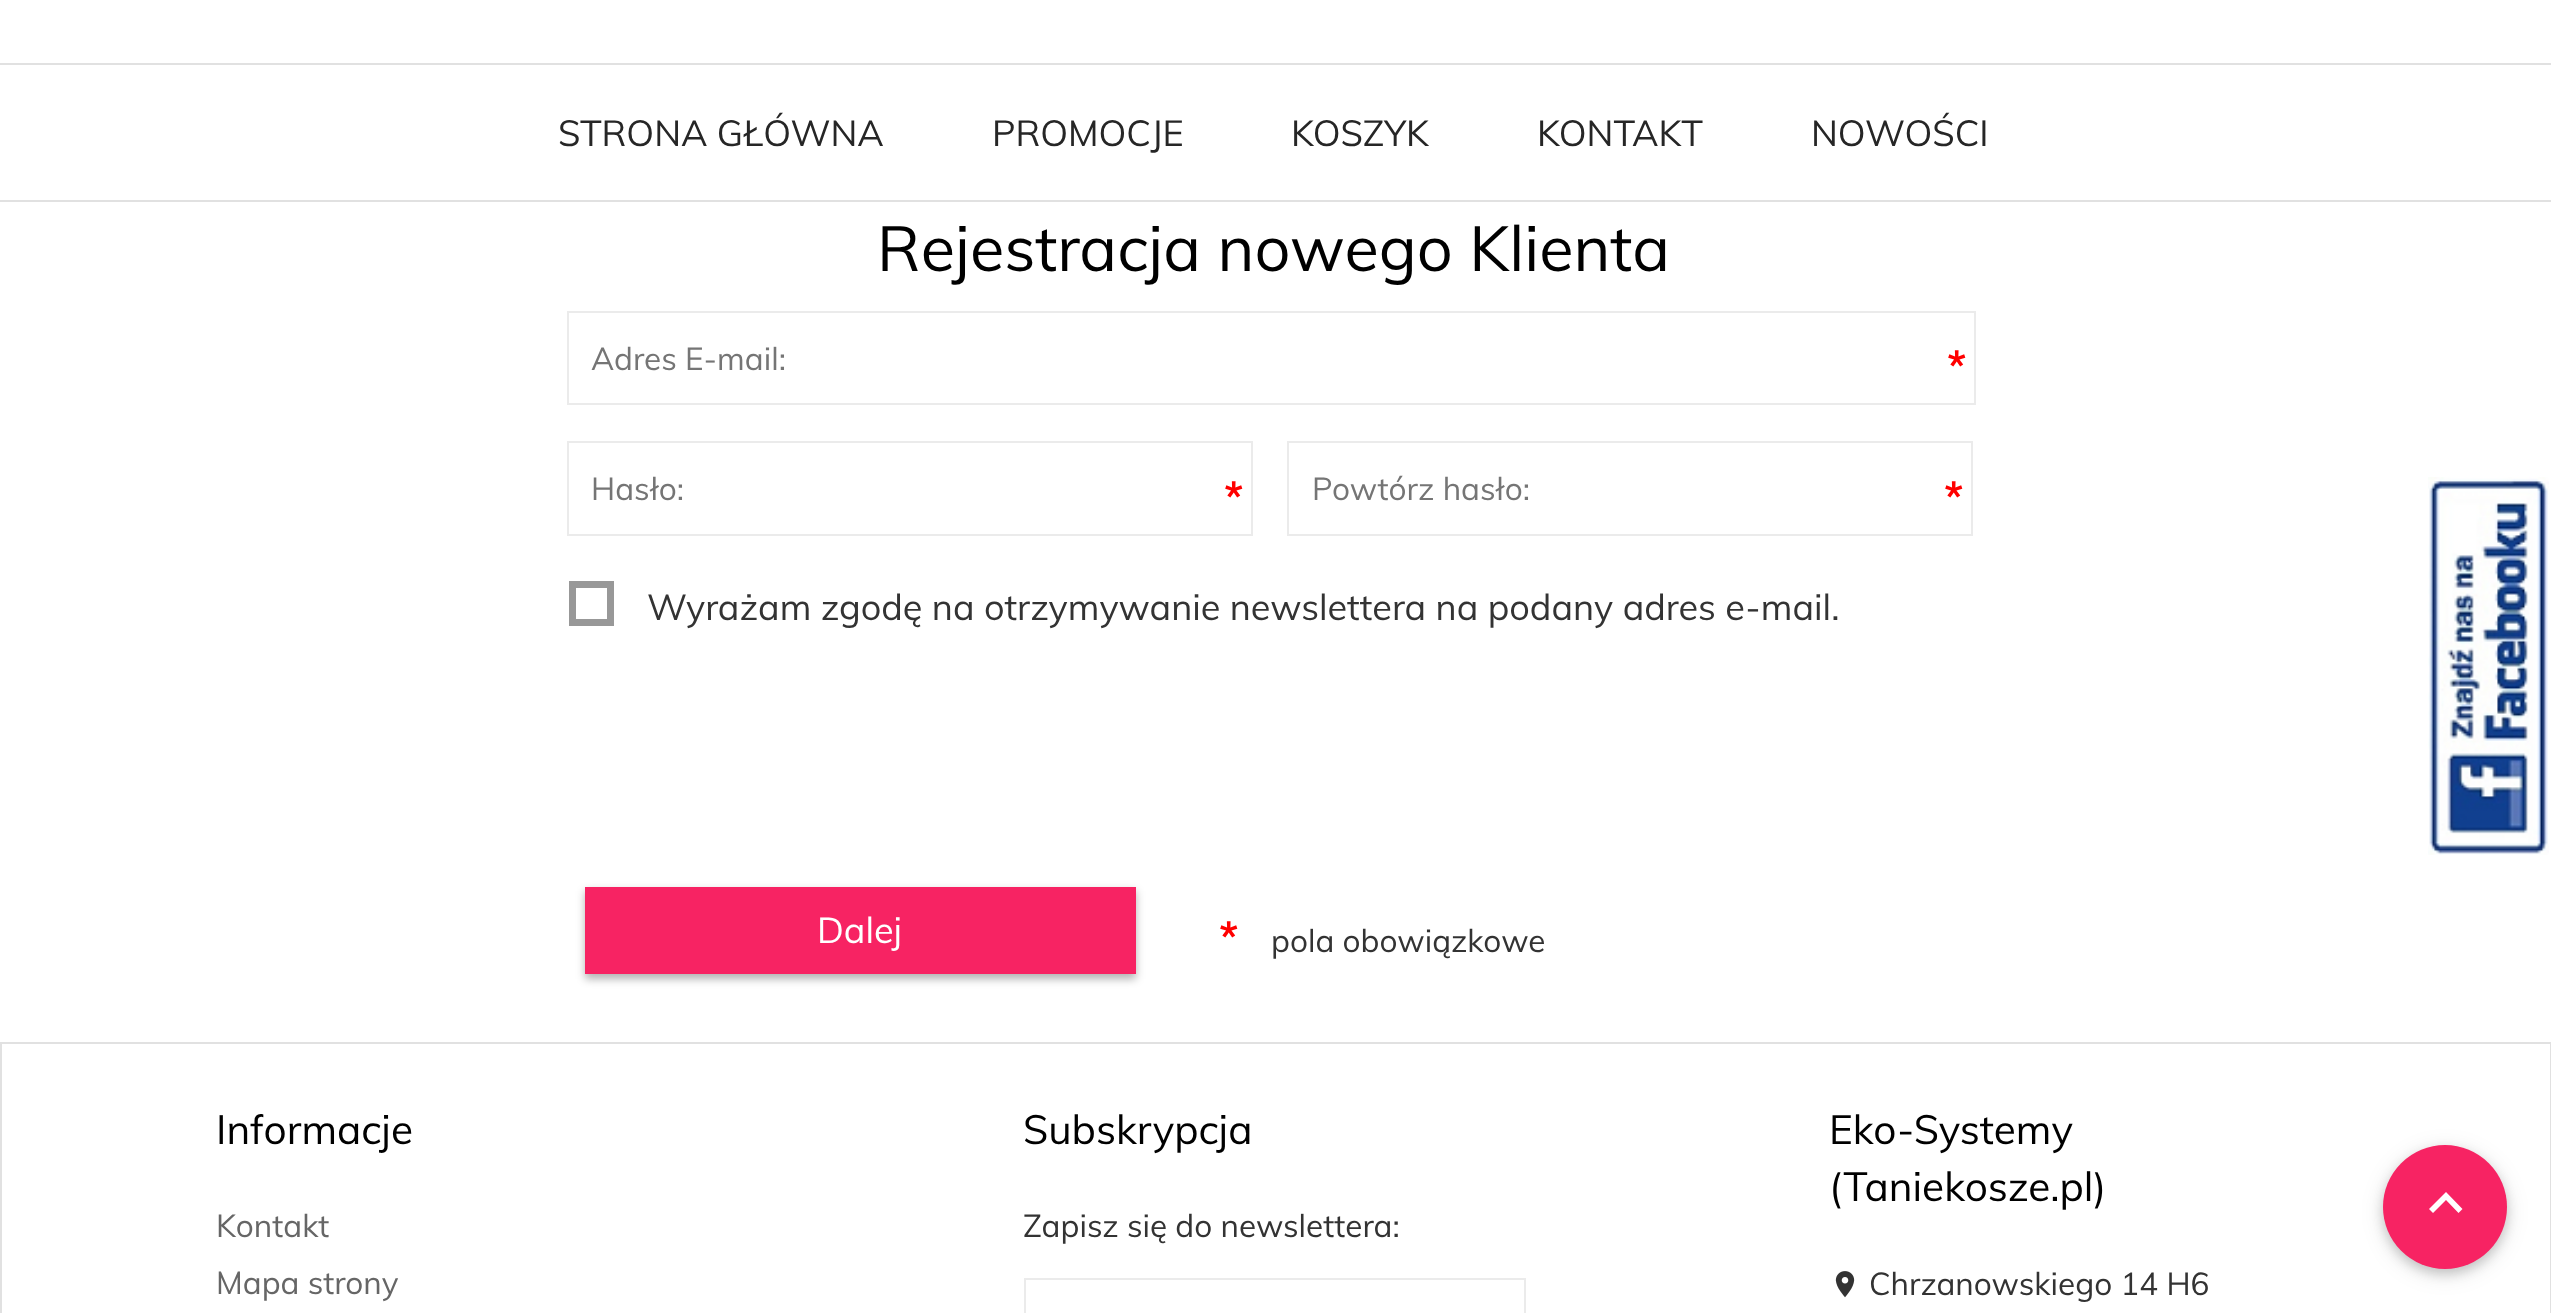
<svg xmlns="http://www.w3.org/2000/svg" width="2551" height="1313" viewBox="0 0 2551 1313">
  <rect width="100%" height="100%" fill="#fff"/>
  <path d="M0 63h2551v2H0z" fill="#e1e1e1"/>
  <path d="M0 200h2551v2H0z" fill="#e1e1e1"/>
  <path d="M568 312h1407v92H568z" fill="none" stroke="#ebebeb" stroke-width="2"/>
  <path d="M568 442h684v93H568z" fill="none" stroke="#ebebeb" stroke-width="2"/>
  <path d="M1288 442h684v93H1288z" fill="none" stroke="#ebebeb" stroke-width="2"/>
  <path d="M572.5 584.5h38v38H572.5z" fill="none" stroke="#989898" stroke-width="7"/>
  <path d="M585 891h551v88H585z" fill="#0000004d" filter="blur(4.5px)"/>
  <path d="M585 887h551v87H585z" fill="#f72363"/>
  <path d="M1 1043h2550v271H1z" fill="none" stroke="#e1e1e1" stroke-width="2"/>
  <path d="M1025 1279h500v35H1025z" fill="none" stroke="#ebebeb" stroke-width="2"/>
  <image x="1835" y="1271" width="20" height="27" href="img/1.png"/>
  <image x="2428" y="477" width="121" height="378" href="img/2.png"/>
  <rect x="2383" y="1150" width="124" height="124" rx="62" fill="#0000001f" filter="blur(11px)"/>
  <rect x="2383" y="1150" width="124" height="124" rx="62" fill="#00000029" filter="blur(5.5px)"/>
  <circle cx="2445" cy="1207" r="62" fill="#f72363"/>
  <path d="M2433 1213L2446 1200L2458.5 1213L2462.5 1209L2446 1192L2429 1209Z" fill="#fff"/>
  <g font-family="Muli" font-size="36" fill="#262626">
    <text x="558" y="146">STRONA GŁÓWNA</text>
    <text x="992" y="146">PROMOCJE</text>
    <text x="1291" y="146">KOSZYK</text>
    <text x="1537" y="146">KONTAKT</text>
    <text x="1811" y="146">NOWOŚCI</text>
  </g>
  <text x="877" y="271" font-family="Muli" font-size="63" fill="#000">Rejestracja nowego Klienta</text>
  <text x="591" y="370" font-family="Muli" font-size="31.5" fill="#757575">Adres E-mail:</text>
  <text x="1947" y="381" font-family="Muli" font-size="40.5" font-weight="bold" fill="#f00">*</text>
  <text x="591" y="500" font-family="Muli" font-size="31.5" fill="#757575">Hasło:</text>
  <text x="1224" y="512" font-family="Muli" font-size="40.5" font-weight="bold" fill="#f00">*</text>
  <text x="1312" y="500" font-family="Muli" font-size="31.5" fill="#757575">Powtórz hasło:</text>
  <text x="1944" y="512" font-family="Muli" font-size="40.5" font-weight="bold" fill="#f00">*</text>
  <text x="647" y="620" font-family="Muli" font-size="36" fill="#333">Wyrażam zgodę na otrzymywanie newslettera na podany adres e-mail.</text>
  <text x="817" y="943" font-family="Muli" font-size="36" fill="#fff">Dalej</text>
  <text x="1219" y="952" font-family="Muli" font-size="40.5" font-weight="bold" fill="#f00">*</text>
  <text x="1271" y="952" font-family="Muli" font-size="31.5" fill="#333">pola obowiązkowe</text>
  <text x="216" y="1144" font-family="Muli" font-size="40.5" fill="#000">Informacje</text>
  <g font-family="Muli" font-size="31.5" fill="#666">
    <text x="216" y="1237">Kontakt</text>
    <text x="216" y="1294">Mapa strony</text>
  </g>
  <text x="1023" y="1144" font-family="Muli" font-size="40.5" fill="#000">Subskrypcja</text>
  <text x="1023" y="1237" font-family="Muli" font-size="31.5" fill="#333">Zapisz się do newslettera:</text>
  <g font-family="Muli" font-size="40.5" fill="#000">
    <text x="1829" y="1144">Eko-Systemy</text>
    <text x="1829" y="1201">(Taniekosze.pl)</text>
  </g>
  <text x="1869" y="1295" font-family="Muli" font-size="31.5" fill="#333">Chrzanowskiego 14 H6</text>
</svg>
